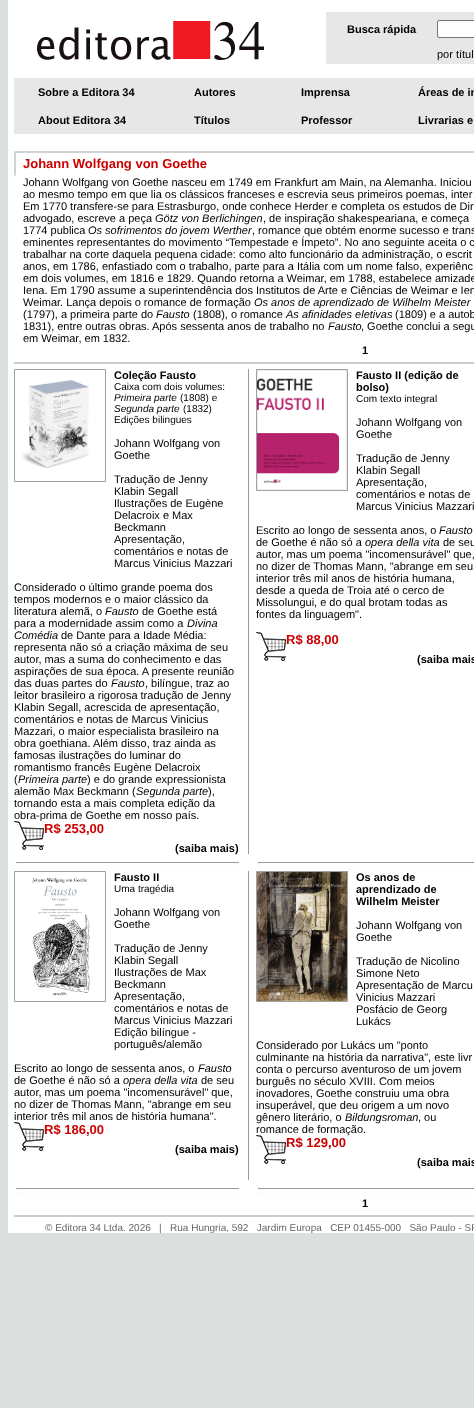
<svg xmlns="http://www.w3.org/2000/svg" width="474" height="1408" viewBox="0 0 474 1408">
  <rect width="100%" height="100%" fill="#dbdfdd"/>
  <path d="M8 0h466v1233H8z" fill="#fff"/>
  <image x="37" y="21" width="227" height="39" href="img/1.png"/>
  <path d="M326 12h148v52H326z" fill="#e7e7e7"/>
  <rect x="437.5" y="20.5" width="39" height="17" rx="1.5" fill="#fff" stroke="#767676"/>
  <path d="M14 78h460v56H14z" fill="#e7e7e7"/>
  <image x="14" y="151" width="460" height="25" href="img/2.png"/>
  <path d="M14 362h460v2H14z" fill="#ccc"/>
  <path d="M14.5 369.5h91v112H14.5z" fill="none" stroke="#a0a0a0"/>
  <image x="22" y="380" width="67" height="88" href="img/3.png"/>
  <path d="M248 369h1v485H248z" fill="#999"/>
  <path d="M256.5 369.5h91v121H256.5z" fill="none" stroke="#a0a0a0"/>
  <image x="257" y="370" width="90" height="120" href="img/5.png"/>
  <image x="256" y="632" width="30" height="29" href="img/4.png"/>
  <image x="15" y="862" width="224" height="8" href="img/6.png"/>
  <image x="257" y="862" width="217" height="8" href="img/7.png"/>
  <path d="M14.5 871.5h91v130H14.5z" fill="none" stroke="#a0a0a0"/>
  <image x="32" y="877" width="58" height="119" href="img/8.png"/>
  <image x="14" y="1122" width="30" height="29" href="img/4.png"/>
  <path d="M248 871h1v309H248z" fill="#999"/>
  <path d="M256.5 871.5h91v130H256.5z" fill="none" stroke="#a0a0a0"/>
  <image x="257" y="872" width="90" height="129" href="img/9.png"/>
  <image x="15" y="1188" width="224" height="8" href="img/6.png"/>
  <image x="257" y="1188" width="217" height="8" href="img/7.png"/>
  <path d="M14 1215h460v2H14z" fill="#ccc"/>
  <text x="347" y="33" font-family="Liberation Sans" font-size="11" font-weight="bold" fill="#000">Busca rápida</text>
  <text x="437" y="58" font-family="Liberation Sans" font-size="11" fill="#000">por títul</text>
  <g font-family="Liberation Sans" font-size="11" font-weight="bold" fill="#000">
    <text x="38" y="96">Sobre a Editora 34</text>
    <text x="194" y="96">Autores</text>
    <text x="301" y="96">Imprensa</text>
    <text x="418" y="96">Áreas de in</text>
    <text x="38" y="124">About Editora 34</text>
    <text x="194" y="124">Títulos</text>
    <text x="301" y="124">Professor</text>
    <text x="418" y="124">Livrarias e</text>
  </g>
  <text x="23" y="168" font-family="Liberation Sans" font-size="13" font-weight="bold" fill="#c00">Johann Wolfgang von Goethe</text>
  <g font-family="Liberation Sans" font-size="11" fill="#000">
    <text x="23" y="186">Johann Wolfgang von Goethe nasceu em 1749 em Frankfurt am Main, na Alemanha. Iniciou</text>
    <text x="23" y="198">ao mesmo tempo em que lia os clássicos franceses e escrevia seus primeiros poemas, inter</text>
    <text x="23" y="210">Em 1770 transfere-se para Estrasburgo, onde conhece Herder e completa os estudos de Dir</text>
    <text x="23" y="222">advogado, escreve a peça</text>
  </g>
  <text x="155" y="222" font-family="Liberation Sans" font-size="11" font-style="italic" fill="#000">Götz von Berlichingen</text>
  <g font-family="Liberation Sans" font-size="11" fill="#000">
    <text x="263" y="222">, de inspiração shakespeariana, e começa</text>
    <text x="23" y="234">1774 publica</text>
  </g>
  <text x="88" y="234" font-family="Liberation Sans" font-size="11" font-style="italic" fill="#000">Os sofrimentos do jovem Werther</text>
  <g font-family="Liberation Sans" font-size="11" fill="#000">
    <text x="252" y="234">, romance que obtém enorme sucesso e trans</text>
    <text x="23" y="246">eminentes representantes do movimento “Tempestade e Ímpeto”. No ano seguinte aceita o c</text>
    <text x="23" y="258">trabalhar na corte daquela pequena cidade: como alto funcionário da administração, o escrit</text>
    <text x="23" y="270">anos, em 1786, enfastiado com o trabalho, parte para a Itália com um nome falso, experiênc</text>
    <text x="23" y="282">em dois volumes, em 1816 e 1829. Quando retorna a Weimar, em 1788, estabelece amizade</text>
    <text x="23" y="294">Iena. Em 1790 assume a superintendência dos Institutos de Arte e Ciências de Weimar e Ien</text>
    <text x="23" y="306">Weimar. Lança depois o romance de formação</text>
  </g>
  <text x="254" y="306" font-family="Liberation Sans" font-size="11" font-style="italic" fill="#000">Os anos de aprendizado de Wilhelm Meister</text>
  <text x="23" y="318" font-family="Liberation Sans" font-size="11" fill="#000">(1797), a primeira parte do</text>
  <text x="156" y="318" font-family="Liberation Sans" font-size="11" font-style="italic" fill="#000">Fausto</text>
  <text x="193" y="318" font-family="Liberation Sans" font-size="11" fill="#000">(1808), o romance</text>
  <text x="286" y="318" font-family="Liberation Sans" font-size="11" font-style="italic" fill="#000">As afinidades eletivas</text>
  <g font-family="Liberation Sans" font-size="11" fill="#000">
    <text x="395" y="318">(1809) e a autob</text>
    <text x="23" y="330">1831), entre outras obras. Após sessenta anos de trabalho no</text>
  </g>
  <text x="328" y="330" font-family="Liberation Sans" font-size="11" font-style="italic" fill="#000">Fausto</text>
  <g font-family="Liberation Sans" font-size="11" fill="#000">
    <text x="361" y="330">, Goethe conclui a segu</text>
    <text x="23" y="342">em Weimar, em 1832.</text>
  </g>
  <g font-family="Liberation Sans" font-size="11" font-weight="bold" fill="#000">
    <text x="362" y="354">1</text>
    <text x="114" y="379">Coleção Fausto</text>
  </g>
  <text x="114" y="390" font-family="Liberation Sans" font-size="10" fill="#000">Caixa com dois volumes:</text>
  <text x="114" y="401" font-family="Liberation Sans" font-size="10" font-style="italic" fill="#000">Primeira parte</text>
  <text x="180" y="401" font-family="Liberation Sans" font-size="10" fill="#000">(1808) e</text>
  <text x="114" y="412" font-family="Liberation Sans" font-size="10" font-style="italic" fill="#000">Segunda parte</text>
  <g font-family="Liberation Sans" font-size="10" fill="#000">
    <text x="183" y="412">(1832)</text>
    <text x="114" y="423">Edições bilingues</text>
  </g>
  <g font-family="Liberation Sans" font-size="11" fill="#000">
    <text x="114" y="447">Johann Wolfgang von</text>
    <text x="114" y="459">Goethe</text>
    <text x="114" y="483">Tradução de Jenny</text>
    <text x="114" y="495">Klabin Segall</text>
    <text x="114" y="507">Ilustrações de Eugène</text>
    <text x="114" y="519">Delacroix e Max</text>
    <text x="114" y="531">Beckmann</text>
    <text x="114" y="543">Apresentação,</text>
    <text x="114" y="555">comentários e notas de</text>
    <text x="114" y="567">Marcus Vinicius Mazzari</text>
    <text x="14" y="591">Considerado o último grande poema dos</text>
    <text x="14" y="603">tempos modernos e o maior clássico da</text>
    <text x="14" y="615">literatura alemã, o</text>
  </g>
  <text x="105" y="615" font-family="Liberation Sans" font-size="11" font-style="italic" fill="#000">Fausto</text>
  <g font-family="Liberation Sans" font-size="11" fill="#000">
    <text x="142" y="615">de Goethe está</text>
    <text x="14" y="627">para a modernidade assim como a</text>
  </g>
  <g font-family="Liberation Sans" font-size="11" font-style="italic" fill="#000">
    <text x="187" y="627">Divina</text>
    <text x="14" y="639">Comédia</text>
  </g>
  <g font-family="Liberation Sans" font-size="11" fill="#000">
    <text x="61" y="639">de Dante para a Idade Média:</text>
    <text x="14" y="651">representa não só a criação máxima de seu</text>
    <text x="14" y="663">autor, mas a suma do conhecimento e das</text>
    <text x="14" y="675">aspirações de sua época. A presente reunião</text>
    <text x="14" y="687">das duas partes do</text>
  </g>
  <text x="111" y="687" font-family="Liberation Sans" font-size="11" font-style="italic" fill="#000">Fausto</text>
  <g font-family="Liberation Sans" font-size="11" fill="#000">
    <text x="145" y="687">, bilíngue, traz ao</text>
    <text x="14" y="699">leitor brasileiro a rigorosa tradução de Jenny</text>
    <text x="14" y="711">Klabin Segall, acrescida de apresentação,</text>
    <text x="14" y="723">comentários e notas de Marcus Vinicius</text>
    <text x="14" y="735">Mazzari, o maior especialista brasileiro na</text>
    <text x="14" y="747">obra goethiana. Além disso, traz ainda as</text>
    <text x="14" y="759">famosas ilustrações do luminar do</text>
    <text x="14" y="771">romantismo francês Eugène Delacroix</text>
    <text x="14" y="783">(</text>
  </g>
  <text x="18" y="783" font-family="Liberation Sans" font-size="11" font-style="italic" fill="#000">Primeira parte</text>
  <g font-family="Liberation Sans" font-size="11" fill="#000">
    <text x="87" y="783">) e do grande expressionista</text>
    <text x="14" y="795">alemão Max Beckmann (</text>
  </g>
  <text x="136" y="795" font-family="Liberation Sans" font-size="11" font-style="italic" fill="#000">Segunda parte</text>
  <g font-family="Liberation Sans" font-size="11" fill="#000">
    <text x="208" y="795">),</text>
    <text x="14" y="807">tornando esta a mais completa edição da</text>
    <text x="14" y="819">obra-prima de Goethe em nosso país.</text>
  </g>
  <image x="14" y="821" width="30" height="29" href="img/4.png"/>
  <text x="44" y="833" font-family="Liberation Sans" font-size="13" font-weight="bold" fill="#c00">R$ 253,00</text>
  <g font-family="Liberation Sans" font-size="11" font-weight="bold" fill="#000">
    <text x="175" y="852">(saiba mais)</text>
    <text x="356" y="379">Fausto II (edição de</text>
    <text x="356" y="391">bolso)</text>
  </g>
  <text x="356" y="402" font-family="Liberation Sans" font-size="10" fill="#000">Com texto integral</text>
  <g font-family="Liberation Sans" font-size="11" fill="#000">
    <text x="356" y="426">Johann Wolfgang von</text>
    <text x="356" y="438">Goethe</text>
    <text x="356" y="462">Tradução de Jenny</text>
    <text x="356" y="474">Klabin Segall</text>
    <text x="356" y="486">Apresentação,</text>
    <text x="356" y="498">comentários e notas de</text>
    <text x="356" y="510">Marcus Vinicius Mazzari</text>
    <text x="256" y="534">Escrito ao longo de sessenta anos, o</text>
  </g>
  <text x="439" y="534" font-family="Liberation Sans" font-size="11" font-style="italic" fill="#000">Fausto</text>
  <text x="256" y="546" font-family="Liberation Sans" font-size="11" fill="#000">de Goethe é não só a</text>
  <text x="365" y="546" font-family="Liberation Sans" font-size="11" font-style="italic" fill="#000">opera della vita</text>
  <g font-family="Liberation Sans" font-size="11" fill="#000">
    <text x="443" y="546">de seu</text>
    <text x="256" y="558">autor, mas um poema "incomensurável" que,</text>
    <text x="256" y="570">no dizer de Thomas Mann, "abrange em seu</text>
    <text x="256" y="582">interior três mil anos de história humana,</text>
    <text x="256" y="594">desde a queda de Troia até o cerco de</text>
    <text x="256" y="606">Missolungui, e do qual brotam todas as</text>
    <text x="256" y="618">fontes da linguagem".</text>
  </g>
  <text x="286" y="644" font-family="Liberation Sans" font-size="13" font-weight="bold" fill="#c00">R$ 88,00</text>
  <g font-family="Liberation Sans" font-size="11" font-weight="bold" fill="#000">
    <text x="417" y="663">(saiba mais</text>
    <text x="114" y="881">Fausto II</text>
  </g>
  <text x="114" y="892" font-family="Liberation Sans" font-size="10" fill="#000">Uma tragédia</text>
  <g font-family="Liberation Sans" font-size="11" fill="#000">
    <text x="114" y="916">Johann Wolfgang von</text>
    <text x="114" y="928">Goethe</text>
    <text x="114" y="952">Tradução de Jenny</text>
    <text x="114" y="964">Klabin Segall</text>
    <text x="114" y="976">Ilustrações de Max</text>
    <text x="114" y="988">Beckmann</text>
    <text x="114" y="1000">Apresentação,</text>
    <text x="114" y="1012">comentários e notas de</text>
    <text x="114" y="1024">Marcus Vinicius Mazzari</text>
    <text x="114" y="1036">Edição bilíngue -</text>
    <text x="114" y="1048">português/alemão</text>
    <text x="14" y="1072">Escrito ao longo de sessenta anos, o</text>
  </g>
  <text x="198" y="1072" font-family="Liberation Sans" font-size="11" font-style="italic" fill="#000">Fausto</text>
  <text x="14" y="1084" font-family="Liberation Sans" font-size="11" fill="#000">de Goethe é não só a</text>
  <text x="123" y="1084" font-family="Liberation Sans" font-size="11" font-style="italic" fill="#000">opera della vita</text>
  <g font-family="Liberation Sans" font-size="11" fill="#000">
    <text x="201" y="1084">de seu</text>
    <text x="14" y="1096">autor, mas um poema "incomensurável" que,</text>
    <text x="14" y="1108">no dizer de Thomas Mann, "abrange em seu</text>
    <text x="14" y="1120">interior três mil anos de história humana".</text>
  </g>
  <text x="44" y="1134" font-family="Liberation Sans" font-size="13" font-weight="bold" fill="#c00">R$ 186,00</text>
  <g font-family="Liberation Sans" font-size="11" font-weight="bold" fill="#000">
    <text x="175" y="1153">(saiba mais)</text>
    <text x="356" y="881">Os anos de</text>
    <text x="356" y="893">aprendizado de</text>
    <text x="356" y="905">Wilhelm Meister</text>
  </g>
  <g font-family="Liberation Sans" font-size="11" fill="#000">
    <text x="356" y="929">Johann Wolfgang von</text>
    <text x="356" y="941">Goethe</text>
    <text x="356" y="965">Tradução de Nicolino</text>
    <text x="356" y="977">Simone Neto</text>
    <text x="356" y="989">Apresentação de Marcu</text>
    <text x="356" y="1001">Vinicius Mazzari</text>
    <text x="356" y="1013">Posfácio de Georg</text>
    <text x="356" y="1025">Lukács</text>
    <text x="256" y="1049">Considerado por Lukács um "ponto</text>
    <text x="256" y="1061">culminante na história da narrativa", este livr</text>
    <text x="256" y="1073">conta o percurso aventuroso de um jovem</text>
    <text x="256" y="1085">burguês no século XVIII. Com meios</text>
    <text x="256" y="1097">inovadores, Goethe construiu uma obra</text>
    <text x="256" y="1109">insuperável, que deu origem a um novo</text>
    <text x="256" y="1121">gênero literário, o</text>
  </g>
  <text x="345" y="1121" font-family="Liberation Sans" font-size="11" font-style="italic" fill="#000">Bildungsroman</text>
  <g font-family="Liberation Sans" font-size="11" fill="#000">
    <text x="418" y="1121">, ou</text>
    <text x="256" y="1133">romance de formação.</text>
  </g>
  <image x="256" y="1135" width="30" height="29" href="img/4.png"/>
  <text x="286" y="1147" font-family="Liberation Sans" font-size="13" font-weight="bold" fill="#c00">R$ 129,00</text>
  <g font-family="Liberation Sans" font-size="11" font-weight="bold" fill="#000">
    <text x="417" y="1166">(saiba mais</text>
    <text x="362" y="1207">1</text>
  </g>
  <text x="45" y="1231" font-family="Liberation Sans" font-size="10" fill="#666" xml:space="preserve">© Editora 34 Ltda. 2026   |   Rua Hungria, 592   Jardim Europa   CEP 01455-000   São Paulo - SP</text>
</svg>
